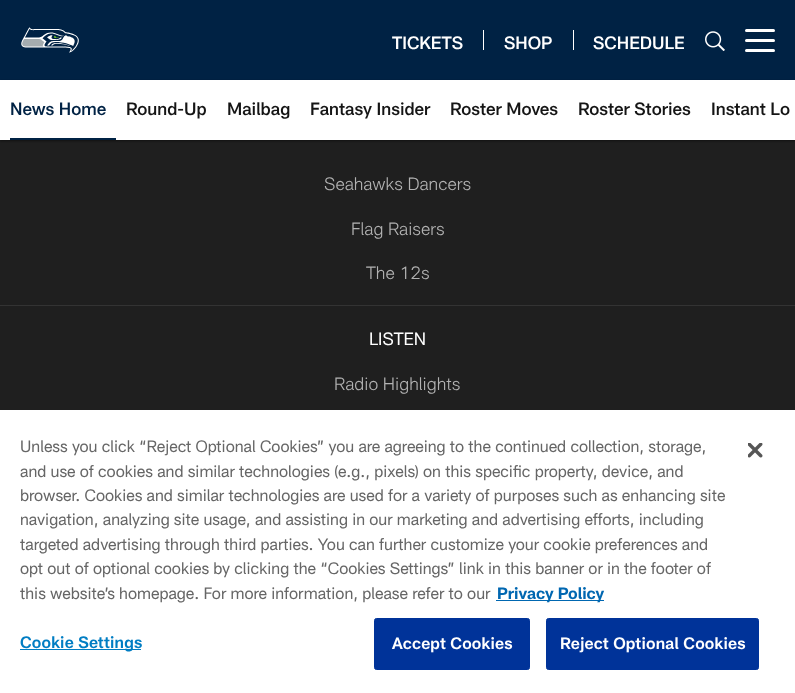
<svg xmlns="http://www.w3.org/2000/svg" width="795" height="693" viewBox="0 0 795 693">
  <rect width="100%" height="100%" fill="#1f1f1f"/>
  <path d="M0 0h795v80H0z" fill="#024"/>
  <image x="21" y="27" width="58" height="26" href="img/1.png"/>
  <path d="M483 30h1v20H483z" fill="#fff"/>
  <path d="M573 30h1v20H573z" fill="#fff"/>
  <image x="705" y="31" width="20" height="20" href="img/2.png"/>
  <rect x="745" y="39" width="30" height="3" rx="1.5" fill="#fff"/>
  <rect x="745" y="29" width="30" height="3" rx="1.5" fill="#fff"/>
  <rect x="745" y="49" width="30" height="3" rx="1.5" fill="#fff"/>
  <path d="M0 81h795v60H0z" fill="#00000078" filter="blur(1px)"/>
  <path d="M0 80h795v60H0z" fill="#fff"/>
  <path d="M10 138h106v2H10z" fill="#024"/>
  <path d="M0 305h795v1H0z" fill="#333"/>
  <path d="M0 410h795v283H0z" fill="#fff"/>
  <path d="M496 600h108v1H496z" fill="#0067b1"/>
  <path d="M20 649h121v1H20z" fill="#007dc3"/>
  <rect x="374.5" y="618.5" width="155" height="51" rx="2" fill="#039" stroke="#039"/>
  <rect x="546.5" y="618.5" width="212" height="51" rx="2" fill="#039" stroke="#039"/>
  <image x="748" y="443" width="15" height="15" href="img/3.png"/>
  <g font-family="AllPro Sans" font-size="17.5" font-weight="500" fill="#fff">
    <text x="392" y="49">TICKETS</text>
    <text x="504" y="49">SHOP</text>
    <text x="593" y="49">SCHEDULE</text>
  </g>
  <text x="10" y="115" font-family="AllPro Sans" font-size="17.5" font-weight="500" fill="#024">News Home</text>
  <g font-family="AllPro Sans" font-size="17.5" font-weight="500" fill="#151515">
    <text x="126" y="115">Round-Up</text>
    <text x="227" y="115">Mailbag</text>
    <text x="310" y="115">Fantasy Insider</text>
    <text x="450" y="115">Roster Moves</text>
    <text x="578" y="115">Roster Stories</text>
    <text x="711" y="115">Instant Lo</text>
  </g>
  <g font-family="AllPro Sans" font-size="17.5" font-weight="300" fill="#b2b2b2">
    <text x="324" y="190">Seahawks Dancers</text>
    <text x="351" y="235">Flag Raisers</text>
    <text x="366" y="279">The 12s</text>
  </g>
  <text x="369" y="345" font-family="AllPro Sans" font-size="17.5" fill="#fff">LISTEN</text>
  <text x="334" y="390" font-family="AllPro Sans" font-size="17.5" font-weight="300" fill="#b2b2b2">Radio Highlights</text>
  <g font-family="AllPro Sans" font-size="16.25" fill="#666">
    <text x="20" y="452">Unless you click “Reject Optional Cookies” you are agreeing to the continued collection, storage,</text>
    <text x="20" y="477">and use of cookies and similar technologies (e.g., pixels) on this specific property, device, and</text>
    <text x="20" y="501">browser. Cookies and similar technologies are used for a variety of purposes such as enhancing site</text>
    <text x="20" y="525">navigation, analyzing site usage, and assisting in our marketing and advertising efforts, including</text>
    <text x="20" y="550">targeted advertising through third parties. You can further customize your cookie preferences and</text>
    <text x="20" y="574">opt out of optional cookies by clicking the “Cookies Settings” link in this banner or in the footer of</text>
    <text x="20" y="599">this website’s homepage. For more information, please refer to our</text>
  </g>
  <text x="497" y="599" font-family="AllPro Sans" font-size="16.25" font-weight="bold" fill="#0067b1">Privacy Policy</text>
  <text x="20" y="648" font-family="AllPro Sans" font-size="16.25" font-weight="600" letter-spacing="0.2" fill="#007dc3">Cookie Settings</text>
  <g font-family="AllPro Sans" font-size="16.25" font-weight="600" letter-spacing="0.2" fill="#fff">
    <text x="392" y="649">Accept Cookies</text>
    <text x="560" y="649">Reject Optional Cookies</text>
  </g>
</svg>
